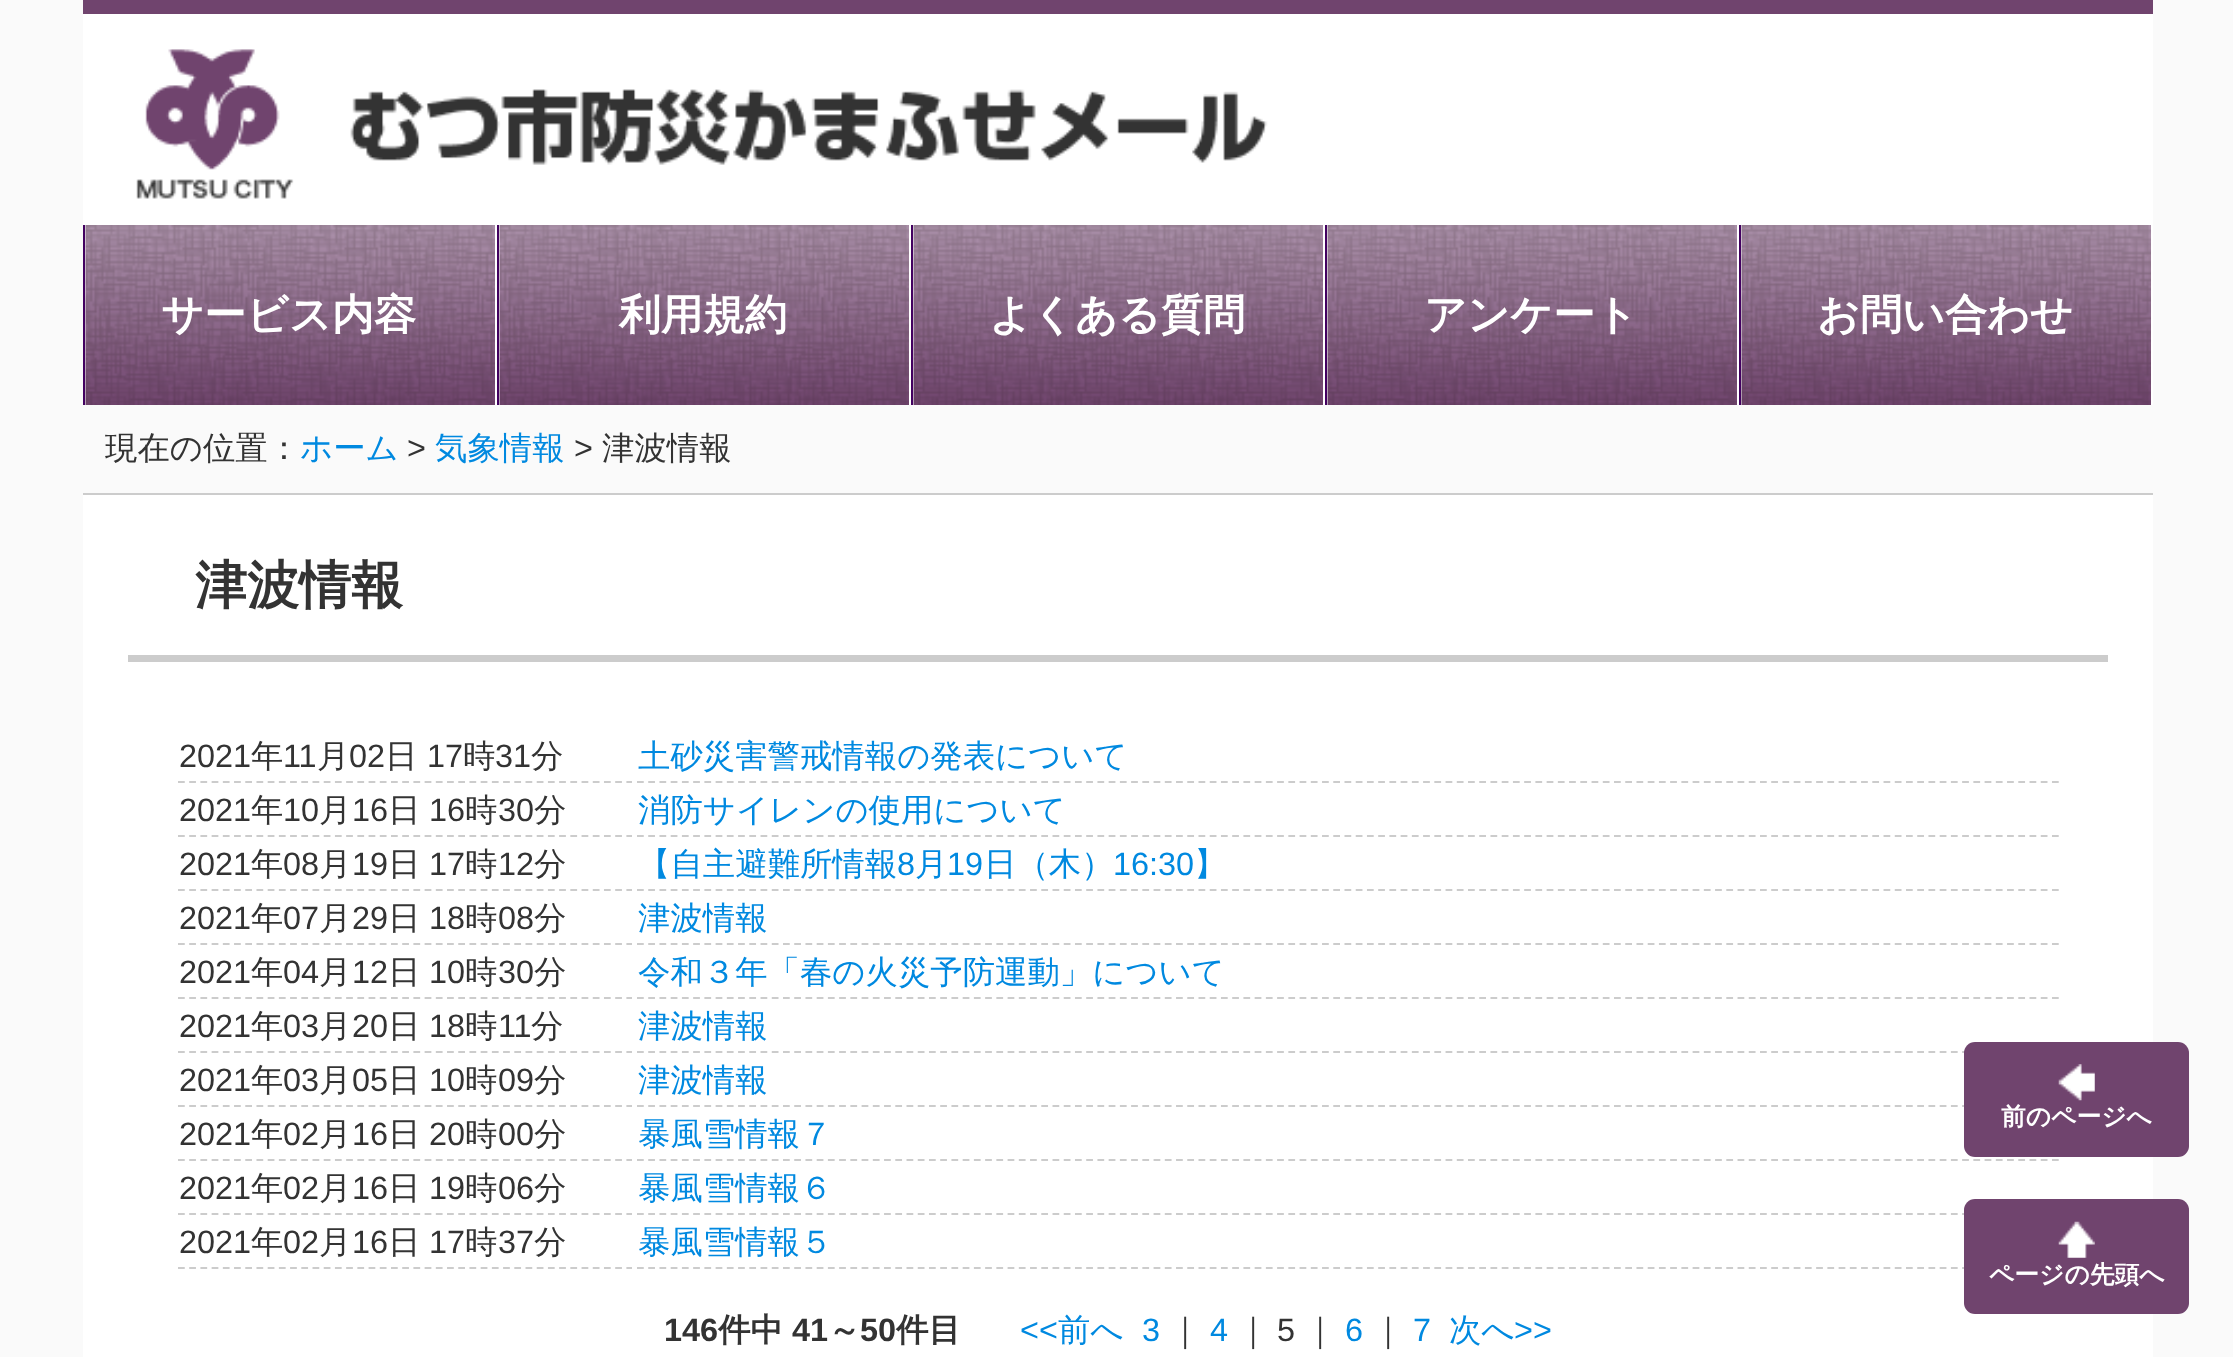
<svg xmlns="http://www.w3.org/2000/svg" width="2233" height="1357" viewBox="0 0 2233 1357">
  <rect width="100%" height="100%" fill="#fafafa"/>
  <image x="85" y="225" width="1657" height="180" href="img/1.png"/>
  <path d="M83 14h2070v211H83z" fill="#fff"/>
  <path d="M83 0h2070v14H83z" fill="#70446e"/>
  <image x="136" y="49" width="1132" height="150" href="img/2.png"/>
  <path d="M83 225h2v180H83z" fill="#420060"/>
  <image x="85" y="225" width="410" height="180" href="img/3.png"/>
  <path d="M497 225h2v180H497z" fill="#420060"/>
  <image x="499" y="225" width="410" height="180" href="img/4.png"/>
  <path d="M911 225h2v180H911z" fill="#420060"/>
  <image x="913" y="225" width="410" height="180" href="img/5.png"/>
  <path d="M1737 225h2v180H1737z" fill="#fff"/>
  <path d="M1325 225h2v180H1325z" fill="#420060"/>
  <image x="1327" y="225" width="410" height="180" href="img/6.png"/>
  <path d="M2151 225h2v180H2151z" fill="#fff"/>
  <path d="M1739 225h2v180H1739z" fill="#420060"/>
  <image x="1741" y="225" width="410" height="180" href="img/7.png"/>
  <path d="M83 493h2070v2H83z" fill="#ccc"/>
  <path d="M83 495h2070v862H83z" fill="#fff"/>
  <path d="M128 655h1980v7H128z" fill="#ccc"/>
  <path d="M178 782H632" fill="none" stroke="#ccc" stroke-width="2.2" stroke-dasharray="6.75 4.46"/>
  <path d="M637 782H2059" fill="none" stroke="#ccc" stroke-width="2.2" stroke-dasharray="6.75 4.48"/>
  <path d="M178 836H632" fill="none" stroke="#ccc" stroke-width="2.2" stroke-dasharray="6.75 4.46"/>
  <path d="M637 836H2059" fill="none" stroke="#ccc" stroke-width="2.2" stroke-dasharray="6.75 4.48"/>
  <path d="M178 890H632" fill="none" stroke="#ccc" stroke-width="2.2" stroke-dasharray="6.75 4.46"/>
  <path d="M637 890H2059" fill="none" stroke="#ccc" stroke-width="2.2" stroke-dasharray="6.75 4.48"/>
  <path d="M178 944H632" fill="none" stroke="#ccc" stroke-width="2.2" stroke-dasharray="6.75 4.46"/>
  <path d="M637 944H2059" fill="none" stroke="#ccc" stroke-width="2.2" stroke-dasharray="6.75 4.48"/>
  <path d="M178 998H632" fill="none" stroke="#ccc" stroke-width="2.2" stroke-dasharray="6.75 4.46"/>
  <path d="M637 998H2059" fill="none" stroke="#ccc" stroke-width="2.2" stroke-dasharray="6.75 4.48"/>
  <path d="M178 1052H632" fill="none" stroke="#ccc" stroke-width="2.2" stroke-dasharray="6.75 4.46"/>
  <path d="M637 1052H2059" fill="none" stroke="#ccc" stroke-width="2.2" stroke-dasharray="6.75 4.48"/>
  <path d="M178 1106H632" fill="none" stroke="#ccc" stroke-width="2.2" stroke-dasharray="6.75 4.46"/>
  <path d="M637 1106H2059" fill="none" stroke="#ccc" stroke-width="2.2" stroke-dasharray="6.75 4.48"/>
  <path d="M178 1160H632" fill="none" stroke="#ccc" stroke-width="2.2" stroke-dasharray="6.75 4.46"/>
  <path d="M637 1160H2059" fill="none" stroke="#ccc" stroke-width="2.2" stroke-dasharray="6.75 4.48"/>
  <path d="M178 1214H632" fill="none" stroke="#ccc" stroke-width="2.2" stroke-dasharray="6.75 4.46"/>
  <path d="M637 1214H2059" fill="none" stroke="#ccc" stroke-width="2.2" stroke-dasharray="6.75 4.48"/>
  <path d="M178 1268H632" fill="none" stroke="#ccc" stroke-width="2.2" stroke-dasharray="6.75 4.46"/>
  <path d="M637 1268H2059" fill="none" stroke="#ccc" stroke-width="2.2" stroke-dasharray="6.75 4.48"/>
  <rect x="1964" y="1042" width="225" height="115" rx="11" fill="#70446e"/>
  <image x="2058" y="1064" width="37" height="37" href="img/8.png"/>
  <rect x="1964" y="1199" width="225" height="115" rx="11" fill="#70446e"/>
  <image x="2058" y="1221" width="37" height="37" href="img/9.png"/>
  <g font-family="WenQuanYi Zen Hei" font-size="42" font-weight="bold" fill="#fff">
    <text x="161" y="329">サービス内容</text>
    <text x="619" y="329">利用規約</text>
    <text x="989" y="329">よくある質問</text>
    <text x="1424" y="329">アンケート</text>
    <text x="1817" y="329">お問い合わせ</text>
  </g>
  <text x="105" y="459" font-family="WenQuanYi Zen Hei" font-size="32.4" font-weight="500" fill="#333">現在の位置：</text>
  <text x="300" y="459" font-family="WenQuanYi Zen Hei" font-size="32.4" font-weight="500" fill="#0089e0">ホーム</text>
  <text x="407" y="459" font-family="Liberation Sans" font-size="32.4" fill="#333">&gt;</text>
  <text x="435" y="459" font-family="WenQuanYi Zen Hei" font-size="32.4" font-weight="500" fill="#0089e0">気象情報</text>
  <text x="574" y="459" font-family="Liberation Sans" font-size="32.4" fill="#333">&gt;</text>
  <text x="602" y="459" font-family="WenQuanYi Zen Hei" font-size="32.4" font-weight="500" fill="#333">津波情報</text>
  <text x="195" y="603" font-family="WenQuanYi Zen Hei" font-size="52" font-weight="bold" fill="#333">津波情報</text>
  <text x="179" y="767" font-family="Liberation Sans" font-size="32.4" fill="#333">2021</text>
  <text x="251" y="767" font-family="WenQuanYi Zen Hei" font-size="32.4" font-weight="500" fill="#333">年</text>
  <text x="283" y="767" font-family="Liberation Sans" font-size="32.4" fill="#333">11</text>
  <text x="317" y="767" font-family="WenQuanYi Zen Hei" font-size="32.4" font-weight="500" fill="#333">月</text>
  <text x="349" y="767" font-family="Liberation Sans" font-size="32.4" fill="#333">02</text>
  <text x="385" y="767" font-family="WenQuanYi Zen Hei" font-size="32.4" font-weight="500" fill="#333">日</text>
  <text x="427" y="767" font-family="Liberation Sans" font-size="32.4" fill="#333">17</text>
  <text x="463" y="767" font-family="WenQuanYi Zen Hei" font-size="32.4" font-weight="500" fill="#333">時</text>
  <text x="495" y="767" font-family="Liberation Sans" font-size="32.4" fill="#333">31</text>
  <text x="531" y="767" font-family="WenQuanYi Zen Hei" font-size="32.4" font-weight="500" fill="#333">分</text>
  <text x="638" y="767" font-family="WenQuanYi Zen Hei" font-size="32.4" font-weight="500" fill="#0089e0">土砂災害警戒情報の発表について</text>
  <text x="179" y="821" font-family="Liberation Sans" font-size="32.4" fill="#333">2021</text>
  <text x="251" y="821" font-family="WenQuanYi Zen Hei" font-size="32.4" font-weight="500" fill="#333">年</text>
  <text x="283" y="821" font-family="Liberation Sans" font-size="32.4" fill="#333">10</text>
  <text x="319" y="821" font-family="WenQuanYi Zen Hei" font-size="32.4" font-weight="500" fill="#333">月</text>
  <text x="352" y="821" font-family="Liberation Sans" font-size="32.4" fill="#333">16</text>
  <text x="388" y="821" font-family="WenQuanYi Zen Hei" font-size="32.4" font-weight="500" fill="#333">日</text>
  <text x="429" y="821" font-family="Liberation Sans" font-size="32.4" fill="#333">16</text>
  <text x="465" y="821" font-family="WenQuanYi Zen Hei" font-size="32.4" font-weight="500" fill="#333">時</text>
  <text x="498" y="821" font-family="Liberation Sans" font-size="32.4" fill="#333">30</text>
  <text x="534" y="821" font-family="WenQuanYi Zen Hei" font-size="32.4" font-weight="500" fill="#333">分</text>
  <text x="638" y="821" font-family="WenQuanYi Zen Hei" font-size="32.4" font-weight="500" fill="#0089e0">消防サイレンの使用について</text>
  <text x="179" y="875" font-family="Liberation Sans" font-size="32.4" fill="#333">2021</text>
  <text x="251" y="875" font-family="WenQuanYi Zen Hei" font-size="32.4" font-weight="500" fill="#333">年</text>
  <text x="283" y="875" font-family="Liberation Sans" font-size="32.4" fill="#333">08</text>
  <text x="319" y="875" font-family="WenQuanYi Zen Hei" font-size="32.4" font-weight="500" fill="#333">月</text>
  <text x="352" y="875" font-family="Liberation Sans" font-size="32.4" fill="#333">19</text>
  <text x="388" y="875" font-family="WenQuanYi Zen Hei" font-size="32.4" font-weight="500" fill="#333">日</text>
  <text x="429" y="875" font-family="Liberation Sans" font-size="32.4" fill="#333">17</text>
  <text x="465" y="875" font-family="WenQuanYi Zen Hei" font-size="32.4" font-weight="500" fill="#333">時</text>
  <text x="498" y="875" font-family="Liberation Sans" font-size="32.4" fill="#333">12</text>
  <text x="534" y="875" font-family="WenQuanYi Zen Hei" font-size="32.4" font-weight="500" fill="#333">分</text>
  <text x="638" y="875" font-family="WenQuanYi Zen Hei" font-size="32.4" font-weight="500" fill="#0089e0">【自主避難所情報</text>
  <text x="897" y="875" font-family="Liberation Sans" font-size="32.4" fill="#0089e0">8</text>
  <text x="915" y="875" font-family="WenQuanYi Zen Hei" font-size="32.4" font-weight="500" fill="#0089e0">月</text>
  <text x="947" y="875" font-family="Liberation Sans" font-size="32.4" fill="#0089e0">19</text>
  <text x="984" y="875" font-family="WenQuanYi Zen Hei" font-size="32.4" font-weight="500" fill="#0089e0">日（木）</text>
  <text x="1113" y="875" font-family="Liberation Sans" font-size="32.4" fill="#0089e0">16:30</text>
  <text x="1194" y="875" font-family="WenQuanYi Zen Hei" font-size="32.4" font-weight="500" fill="#0089e0">】</text>
  <text x="179" y="929" font-family="Liberation Sans" font-size="32.4" fill="#333">2021</text>
  <text x="251" y="929" font-family="WenQuanYi Zen Hei" font-size="32.4" font-weight="500" fill="#333">年</text>
  <text x="283" y="929" font-family="Liberation Sans" font-size="32.4" fill="#333">07</text>
  <text x="319" y="929" font-family="WenQuanYi Zen Hei" font-size="32.4" font-weight="500" fill="#333">月</text>
  <text x="352" y="929" font-family="Liberation Sans" font-size="32.4" fill="#333">29</text>
  <text x="388" y="929" font-family="WenQuanYi Zen Hei" font-size="32.4" font-weight="500" fill="#333">日</text>
  <text x="429" y="929" font-family="Liberation Sans" font-size="32.4" fill="#333">18</text>
  <text x="465" y="929" font-family="WenQuanYi Zen Hei" font-size="32.4" font-weight="500" fill="#333">時</text>
  <text x="498" y="929" font-family="Liberation Sans" font-size="32.4" fill="#333">08</text>
  <text x="534" y="929" font-family="WenQuanYi Zen Hei" font-size="32.4" font-weight="500" fill="#333">分</text>
  <text x="638" y="929" font-family="WenQuanYi Zen Hei" font-size="32.4" font-weight="500" fill="#0089e0">津波情報</text>
  <text x="179" y="983" font-family="Liberation Sans" font-size="32.4" fill="#333">2021</text>
  <text x="251" y="983" font-family="WenQuanYi Zen Hei" font-size="32.4" font-weight="500" fill="#333">年</text>
  <text x="283" y="983" font-family="Liberation Sans" font-size="32.4" fill="#333">04</text>
  <text x="319" y="983" font-family="WenQuanYi Zen Hei" font-size="32.4" font-weight="500" fill="#333">月</text>
  <text x="352" y="983" font-family="Liberation Sans" font-size="32.4" fill="#333">12</text>
  <text x="388" y="983" font-family="WenQuanYi Zen Hei" font-size="32.4" font-weight="500" fill="#333">日</text>
  <text x="429" y="983" font-family="Liberation Sans" font-size="32.4" fill="#333">10</text>
  <text x="465" y="983" font-family="WenQuanYi Zen Hei" font-size="32.4" font-weight="500" fill="#333">時</text>
  <text x="498" y="983" font-family="Liberation Sans" font-size="32.4" fill="#333">30</text>
  <text x="534" y="983" font-family="WenQuanYi Zen Hei" font-size="32.4" font-weight="500" fill="#333">分</text>
  <text x="638" y="983" font-family="WenQuanYi Zen Hei" font-size="32.4" font-weight="500" fill="#0089e0">令和３年「春の火災予防運動」について</text>
  <text x="179" y="1037" font-family="Liberation Sans" font-size="32.4" fill="#333">2021</text>
  <text x="251" y="1037" font-family="WenQuanYi Zen Hei" font-size="32.4" font-weight="500" fill="#333">年</text>
  <text x="283" y="1037" font-family="Liberation Sans" font-size="32.4" fill="#333">03</text>
  <text x="319" y="1037" font-family="WenQuanYi Zen Hei" font-size="32.4" font-weight="500" fill="#333">月</text>
  <text x="352" y="1037" font-family="Liberation Sans" font-size="32.4" fill="#333">20</text>
  <text x="388" y="1037" font-family="WenQuanYi Zen Hei" font-size="32.4" font-weight="500" fill="#333">日</text>
  <text x="429" y="1037" font-family="Liberation Sans" font-size="32.4" fill="#333">18</text>
  <text x="465" y="1037" font-family="WenQuanYi Zen Hei" font-size="32.4" font-weight="500" fill="#333">時</text>
  <text x="498" y="1037" font-family="Liberation Sans" font-size="32.4" fill="#333">11</text>
  <text x="531" y="1037" font-family="WenQuanYi Zen Hei" font-size="32.4" font-weight="500" fill="#333">分</text>
  <text x="638" y="1037" font-family="WenQuanYi Zen Hei" font-size="32.4" font-weight="500" fill="#0089e0">津波情報</text>
  <text x="179" y="1091" font-family="Liberation Sans" font-size="32.4" fill="#333">2021</text>
  <text x="251" y="1091" font-family="WenQuanYi Zen Hei" font-size="32.4" font-weight="500" fill="#333">年</text>
  <text x="283" y="1091" font-family="Liberation Sans" font-size="32.4" fill="#333">03</text>
  <text x="319" y="1091" font-family="WenQuanYi Zen Hei" font-size="32.4" font-weight="500" fill="#333">月</text>
  <text x="352" y="1091" font-family="Liberation Sans" font-size="32.4" fill="#333">05</text>
  <text x="388" y="1091" font-family="WenQuanYi Zen Hei" font-size="32.4" font-weight="500" fill="#333">日</text>
  <text x="429" y="1091" font-family="Liberation Sans" font-size="32.4" fill="#333">10</text>
  <text x="465" y="1091" font-family="WenQuanYi Zen Hei" font-size="32.4" font-weight="500" fill="#333">時</text>
  <text x="498" y="1091" font-family="Liberation Sans" font-size="32.4" fill="#333">09</text>
  <text x="534" y="1091" font-family="WenQuanYi Zen Hei" font-size="32.4" font-weight="500" fill="#333">分</text>
  <text x="638" y="1091" font-family="WenQuanYi Zen Hei" font-size="32.4" font-weight="500" fill="#0089e0">津波情報</text>
  <text x="179" y="1145" font-family="Liberation Sans" font-size="32.4" fill="#333">2021</text>
  <text x="251" y="1145" font-family="WenQuanYi Zen Hei" font-size="32.4" font-weight="500" fill="#333">年</text>
  <text x="283" y="1145" font-family="Liberation Sans" font-size="32.4" fill="#333">02</text>
  <text x="319" y="1145" font-family="WenQuanYi Zen Hei" font-size="32.4" font-weight="500" fill="#333">月</text>
  <text x="352" y="1145" font-family="Liberation Sans" font-size="32.4" fill="#333">16</text>
  <text x="388" y="1145" font-family="WenQuanYi Zen Hei" font-size="32.4" font-weight="500" fill="#333">日</text>
  <text x="429" y="1145" font-family="Liberation Sans" font-size="32.4" fill="#333">20</text>
  <text x="465" y="1145" font-family="WenQuanYi Zen Hei" font-size="32.4" font-weight="500" fill="#333">時</text>
  <text x="498" y="1145" font-family="Liberation Sans" font-size="32.4" fill="#333">00</text>
  <text x="534" y="1145" font-family="WenQuanYi Zen Hei" font-size="32.4" font-weight="500" fill="#333">分</text>
  <text x="638" y="1145" font-family="WenQuanYi Zen Hei" font-size="32.4" font-weight="500" fill="#0089e0">暴風雪情報７</text>
  <text x="179" y="1199" font-family="Liberation Sans" font-size="32.4" fill="#333">2021</text>
  <text x="251" y="1199" font-family="WenQuanYi Zen Hei" font-size="32.4" font-weight="500" fill="#333">年</text>
  <text x="283" y="1199" font-family="Liberation Sans" font-size="32.4" fill="#333">02</text>
  <text x="319" y="1199" font-family="WenQuanYi Zen Hei" font-size="32.4" font-weight="500" fill="#333">月</text>
  <text x="352" y="1199" font-family="Liberation Sans" font-size="32.4" fill="#333">16</text>
  <text x="388" y="1199" font-family="WenQuanYi Zen Hei" font-size="32.4" font-weight="500" fill="#333">日</text>
  <text x="429" y="1199" font-family="Liberation Sans" font-size="32.4" fill="#333">19</text>
  <text x="465" y="1199" font-family="WenQuanYi Zen Hei" font-size="32.4" font-weight="500" fill="#333">時</text>
  <text x="498" y="1199" font-family="Liberation Sans" font-size="32.4" fill="#333">06</text>
  <text x="534" y="1199" font-family="WenQuanYi Zen Hei" font-size="32.4" font-weight="500" fill="#333">分</text>
  <text x="638" y="1199" font-family="WenQuanYi Zen Hei" font-size="32.4" font-weight="500" fill="#0089e0">暴風雪情報６</text>
  <text x="179" y="1253" font-family="Liberation Sans" font-size="32.4" fill="#333">2021</text>
  <text x="251" y="1253" font-family="WenQuanYi Zen Hei" font-size="32.4" font-weight="500" fill="#333">年</text>
  <text x="283" y="1253" font-family="Liberation Sans" font-size="32.4" fill="#333">02</text>
  <text x="319" y="1253" font-family="WenQuanYi Zen Hei" font-size="32.4" font-weight="500" fill="#333">月</text>
  <text x="352" y="1253" font-family="Liberation Sans" font-size="32.4" fill="#333">16</text>
  <text x="388" y="1253" font-family="WenQuanYi Zen Hei" font-size="32.4" font-weight="500" fill="#333">日</text>
  <text x="429" y="1253" font-family="Liberation Sans" font-size="32.4" fill="#333">17</text>
  <text x="465" y="1253" font-family="WenQuanYi Zen Hei" font-size="32.4" font-weight="500" fill="#333">時</text>
  <text x="498" y="1253" font-family="Liberation Sans" font-size="32.4" fill="#333">37</text>
  <text x="534" y="1253" font-family="WenQuanYi Zen Hei" font-size="32.4" font-weight="500" fill="#333">分</text>
  <text x="638" y="1253" font-family="WenQuanYi Zen Hei" font-size="32.4" font-weight="500" fill="#0089e0">暴風雪情報５</text>
  <text x="664" y="1341" font-family="Liberation Sans" font-size="32.4" font-weight="bold" fill="#333">146</text>
  <text x="718" y="1341" font-family="WenQuanYi Zen Hei" font-size="32.4" font-weight="bold" fill="#333">件中</text>
  <text x="792" y="1341" font-family="Liberation Sans" font-size="32.4" font-weight="bold" fill="#333">41</text>
  <text x="828" y="1341" font-family="WenQuanYi Zen Hei" font-size="32.4" font-weight="bold" fill="#333">～</text>
  <text x="860" y="1341" font-family="Liberation Sans" font-size="32.4" font-weight="bold" fill="#333">50</text>
  <text x="896" y="1341" font-family="WenQuanYi Zen Hei" font-size="32.4" font-weight="bold" fill="#333">件目</text>
  <text x="1020" y="1341" font-family="Liberation Sans" font-size="32.4" fill="#0089e0">&lt;&lt;</text>
  <text x="1058" y="1341" font-family="WenQuanYi Zen Hei" font-size="32.4" font-weight="500" fill="#0089e0">前へ</text>
  <text x="1142" y="1341" font-family="Liberation Sans" font-size="32.4" fill="#0089e0">3</text>
  <text x="1169" y="1341" font-family="WenQuanYi Zen Hei" font-size="32.4" font-weight="500" fill="#333">｜</text>
  <text x="1210" y="1341" font-family="Liberation Sans" font-size="32.4" fill="#0089e0">4</text>
  <text x="1237" y="1341" font-family="WenQuanYi Zen Hei" font-size="32.4" font-weight="500" fill="#333">｜</text>
  <text x="1277" y="1341" font-family="Liberation Sans" font-size="32.4" fill="#333">5</text>
  <text x="1304" y="1341" font-family="WenQuanYi Zen Hei" font-size="32.4" font-weight="500" fill="#333">｜</text>
  <text x="1345" y="1341" font-family="Liberation Sans" font-size="32.4" fill="#0089e0">6</text>
  <text x="1372" y="1341" font-family="WenQuanYi Zen Hei" font-size="32.4" font-weight="500" fill="#333">｜</text>
  <text x="1413" y="1341" font-family="Liberation Sans" font-size="32.4" fill="#0089e0">7</text>
  <text x="1449" y="1341" font-family="WenQuanYi Zen Hei" font-size="32.4" font-weight="500" fill="#0089e0">次へ</text>
  <text x="1514" y="1341" font-family="Liberation Sans" font-size="32.4" fill="#0089e0">&gt;&gt;</text>
  <g font-family="WenQuanYi Zen Hei" font-size="24.75" font-weight="bold" fill="#fff">
    <text x="2001" y="1125">前のページへ</text>
    <text x="1989" y="1283">ページの先頭へ</text>
  </g>
</svg>
